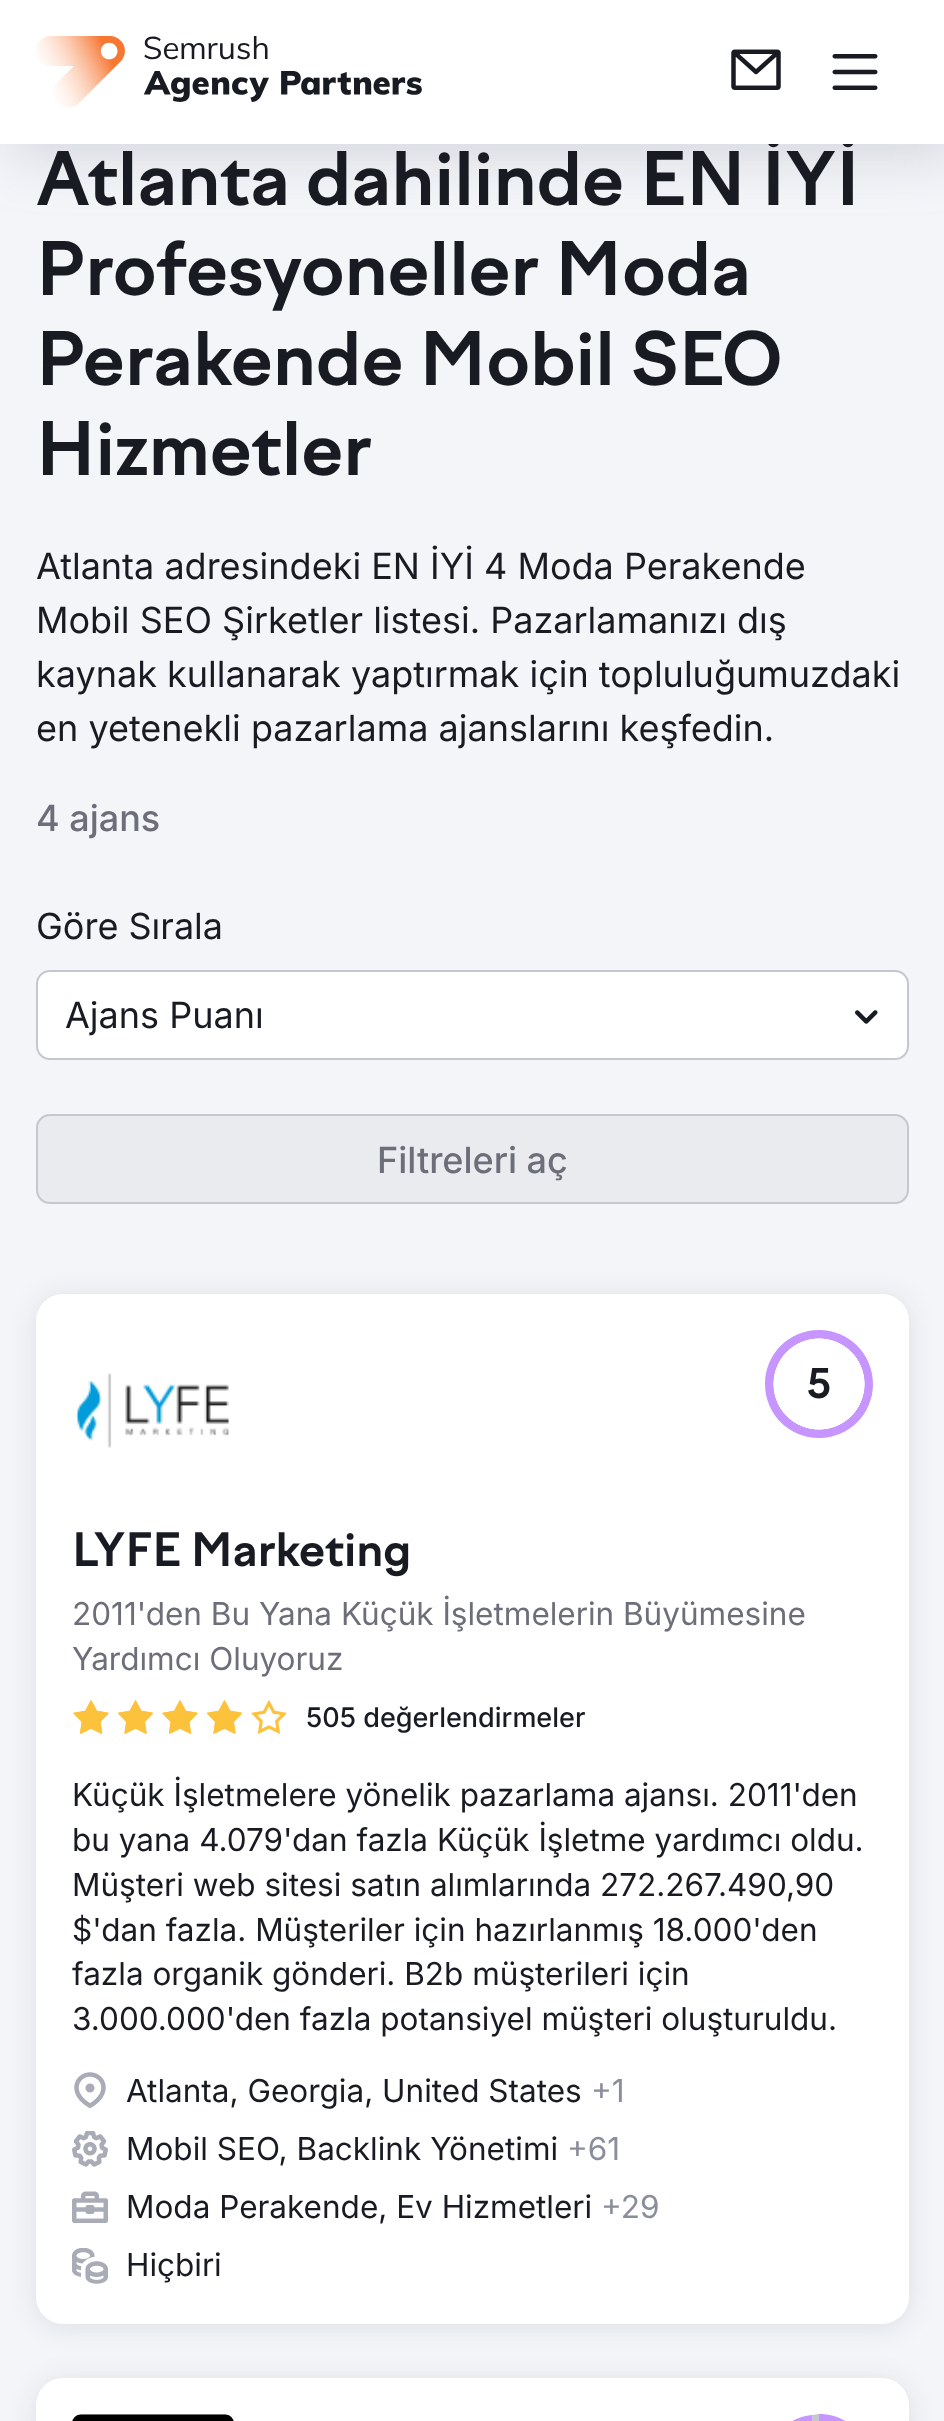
<svg xmlns="http://www.w3.org/2000/svg" width="944" height="2421" viewBox="0 0 944 2421">
  <defs>
    <radialGradient id="g1" gradientUnits="userSpaceOnUse" cx="819" cy="1384" r="54"><stop offset="0.84" stop-color="#fff"/><stop offset="0.85" stop-color="#fff" stop-opacity="0"/><stop offset="1" stop-color="#000" stop-opacity="0"/></radialGradient>
  </defs>
  <rect width="100%" height="100%" fill="#f4f5f9"/>
  <path d="M11 11h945v144H11z" fill="#898d9a4d" filter="blur(28px)"/>
  <rect x="37" y="971" width="871" height="88" rx="13" fill="#fff" stroke="#c4c7cf" stroke-width="2"/>
  <image x="855" y="1010" width="23" height="14" href="img/4.png"/>
  <rect x="37" y="1115" width="871" height="88" rx="13" fill="#e9ebef" stroke="#c4c7cf" stroke-width="2"/>
  <rect x="36" y="1296" width="873" height="1031" rx="27" fill="#191b231a" filter="blur(13.5px)"/>
  <rect x="36" y="1294" width="873" height="1030" rx="27" fill="#fff"/>
  <image x="75" y="1373" width="155" height="75" href="img/5.png"/>
  <path d="M819 1384V1330C849 1330 873 1354 873 1384C873 1414 849 1438 819 1438C789 1438 765 1414 765 1384C765 1354 789 1330 819 1330Z" fill="#c695ff"/>
  <path d="M773 1338h92v92H773z" fill="url(#g1)"/>
  <image x="73" y="1700" width="214" height="34" href="img/6.png"/>
  <image x="74" y="2072" width="32" height="36" href="img/7.png"/>
  <image x="72" y="2131" width="36" height="36" href="img/8.png"/>
  <image x="72" y="2191" width="36" height="32" href="img/9.png"/>
  <image x="72" y="2248" width="36" height="36" href="img/10.png"/>
  <rect x="36" y="2381" width="873" height="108" rx="27" fill="#191b231a" filter="blur(13.5px)"/>
  <rect x="36" y="2378" width="873" height="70" rx="27" fill="#fff"/>
  <image x="72" y="2414" width="162" height="7" href="img/11.png"/>
  <path d="M819 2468V2414C848 2414 872 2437 873 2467C874 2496 851 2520 822 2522C793 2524 768 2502 765 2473C762 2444 783 2418 812 2415Z" fill="#c695ff"/>
  <path d="M819 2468L812 2415L819 2414Z" fill="#c4c7cf"/>
  <text x="36" y="205" font-family="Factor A" font-size="72" font-weight="bold" fill="#191b23">Atlanta dahilinde EN İYİ</text>
  <path d="M0 0h944v144H0z" fill="#fff"/>
  <image x="832" y="54" width="46" height="36" href="img/3.png"/>
  <image x="731" y="49" width="50" height="41" href="img/2.png"/>
  <image x="36" y="36" width="386" height="72" href="img/1.png"/>
  <g font-family="Factor A" font-size="72" font-weight="bold" fill="#191b23">
    <text x="36" y="295">Profesyoneller Moda</text>
    <text x="36" y="385">Perakende Mobil SEO</text>
    <text x="36" y="475">Hizmetler</text>
  </g>
  <g font-family="Inter" font-size="36" fill="#191b23">
    <text x="36" y="579">Atlanta adresindeki EN İYİ 4 Moda Perakende</text>
    <text x="36" y="633">Mobil SEO Şirketler listesi. Pazarlamanızı dış</text>
    <text x="36" y="687">kaynak kullanarak yaptırmak için topluluğumuzdaki</text>
    <text x="36" y="741">en yetenekli pazarlama ajanslarını keşfedin.</text>
  </g>
  <text x="36" y="831" font-family="Inter" font-size="36" font-weight="500" fill="#6c6e79">4 ajans</text>
  <g font-family="Inter" font-size="36" fill="#191b23">
    <text x="36" y="939">Göre Sırala</text>
    <text x="65" y="1028">Ajans Puanı</text>
  </g>
  <text x="377" y="1173" font-family="Inter" font-size="36" font-weight="500" fill="#6c6e79">Filtreleri aç</text>
  <text x="807" y="1398" font-family="Factor A" font-size="40" font-weight="bold" fill="#191b23">5</text>
  <text x="72" y="1566" font-family="Factor A" font-size="45" font-weight="bold" fill="#191b23">LYFE Marketing</text>
  <g font-family="Inter" font-size="31.5" fill="#6c6e79">
    <text x="72" y="1625">2011'den Bu Yana Küçük İşletmelerin Büyümesine</text>
    <text x="72" y="1670">Yardımcı Oluyoruz</text>
  </g>
  <text x="306" y="1727" font-family="Inter" font-size="27" font-weight="500" fill="#191b23">505 değerlendirmeler</text>
  <g font-family="Inter" font-size="31.5" fill="#191b23">
    <text x="72" y="1806">Küçük İşletmelere yönelik pazarlama ajansı. 2011'den</text>
    <text x="72" y="1851">bu yana 4.079'dan fazla Küçük İşletme yardımcı oldu.</text>
    <text x="72" y="1896">Müşteri web sitesi satın alımlarında 272.267.490,90</text>
    <text x="72" y="1941">$'dan fazla. Müşteriler için hazırlanmış 18.000'den</text>
    <text x="72" y="1985">fazla organik gönderi. B2b müşterileri için</text>
    <text x="72" y="2030">3.000.000'den fazla potansiyel müşteri oluşturuldu.</text>
    <text x="126" y="2102">Atlanta, Georgia, United States</text>
  </g>
  <text x="591" y="2102" font-family="Inter" font-size="31.5" fill="#8a8e9b">+1</text>
  <text x="126" y="2160" font-family="Inter" font-size="31.5" fill="#191b23">Mobil SEO, Backlink Yönetimi</text>
  <text x="567" y="2160" font-family="Inter" font-size="31.5" fill="#8a8e9b">+61</text>
  <text x="126" y="2218" font-family="Inter" font-size="31.5" fill="#191b23">Moda Perakende, Ev Hizmetleri</text>
  <text x="601" y="2218" font-family="Inter" font-size="31.5" fill="#8a8e9b">+29</text>
  <text x="126" y="2276" font-family="Inter" font-size="31.5" fill="#191b23">Hiçbiri</text>
</svg>
